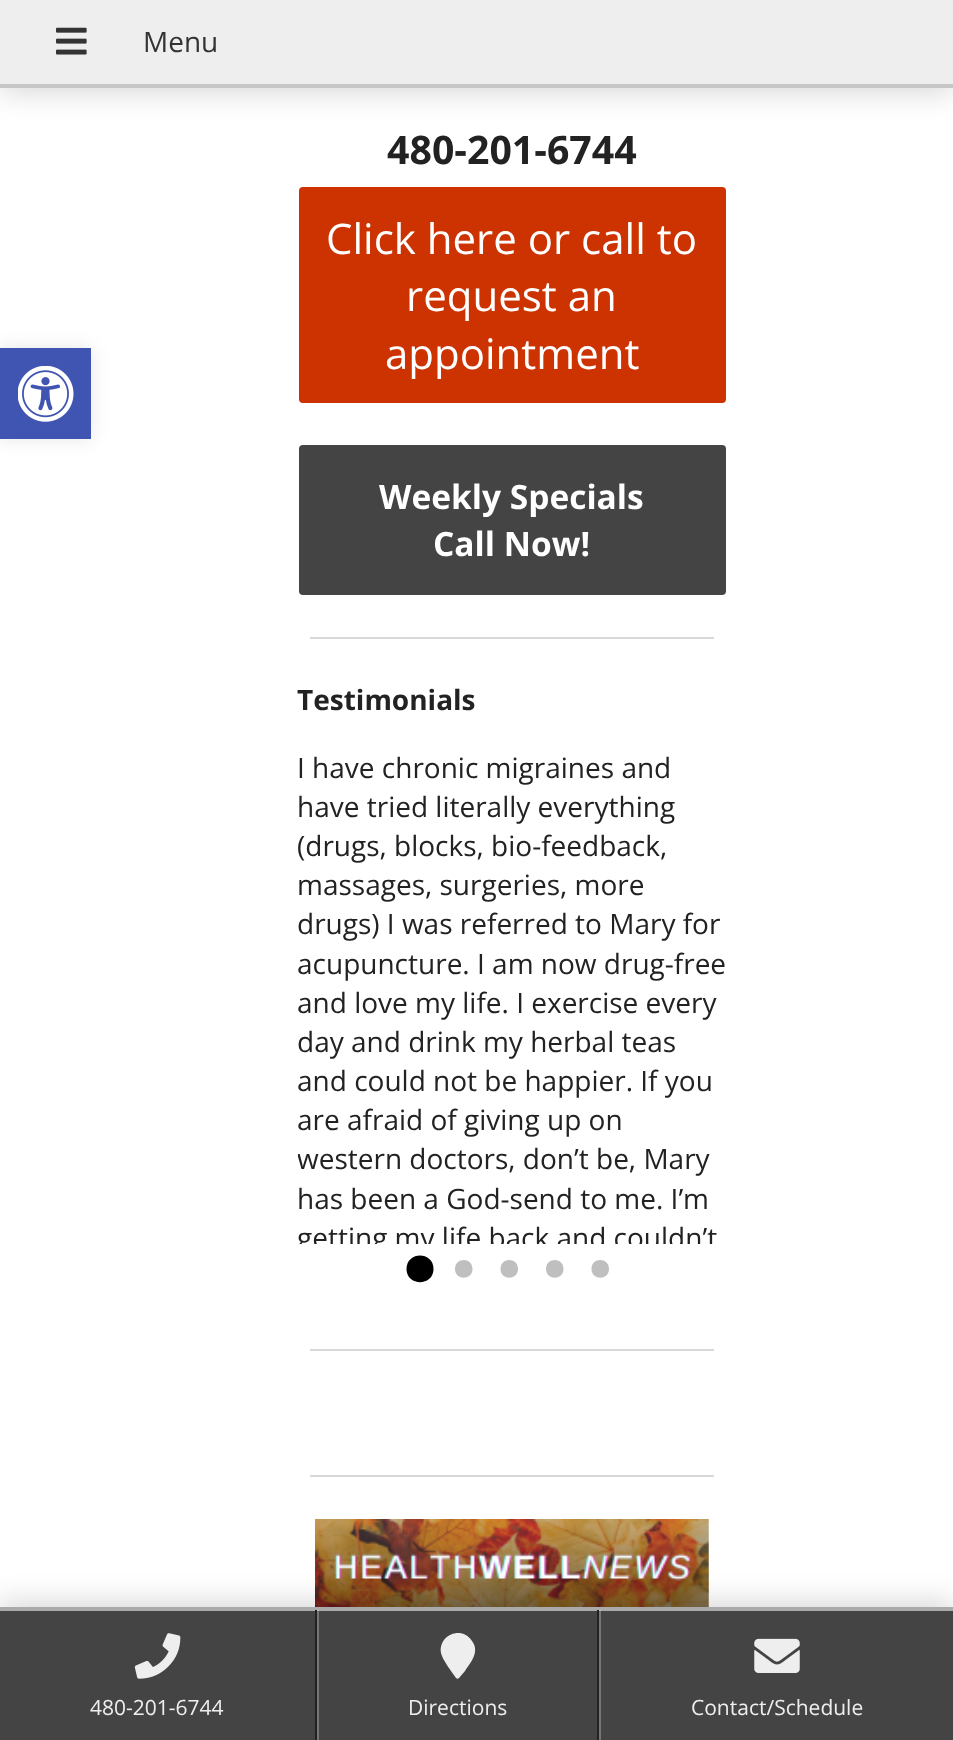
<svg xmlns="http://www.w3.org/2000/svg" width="953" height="1740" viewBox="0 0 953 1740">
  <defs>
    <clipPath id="clip1"><path d="M298 719h428v525H298z"/></clipPath>
  </defs>
  <rect width="100%" height="100%" fill="#fff"/>
  <path d="M0 348h91v91H0z" fill="#0000001a" filter="blur(9px)"/>
  <path d="M0 348h91v91H0z" fill="#4054b2"/>
  <image x="18" y="366" width="56" height="56" href="img/1.png"/>
  <path d="M0 5h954v88H0z" fill="#00000026" filter="blur(14px)"/>
  <path d="M0 0h953v84H0z" fill="#eee"/>
  <path d="M0 84h953v4H0z" fill="#c6c6c6"/>
  <image x="56" y="27" width="31" height="28" href="img/2.png"/>
  <rect x="299" y="187" width="427" height="216" rx="4" fill="#c30"/>
  <rect x="299" y="445" width="427" height="150" rx="4" fill="#444"/>
  <path d="M310 637h404v2H310z" fill="#d9d9d9"/>
  <path d="M433.5 1269C433.5 1251 406.5 1251 406.5 1269C406.5 1286.5 433.5 1286.5 433.5 1269Z" fill="#000"/>
  <path d="M472.5 1269C472.5 1257 455 1257 455 1269C455 1280.5 472.5 1280.5 472.5 1269ZM518 1269C518 1257 500.5 1257 500.5 1269C500.5 1280.5 518 1280.5 518 1269Z" fill="#bfbfbf"/>
  <path d="M563.5 1269C563.5 1257 546 1257 546 1269C546 1280.5 563.5 1280.5 563.5 1269ZM609 1269C609 1257 591.5 1257 591.5 1269C591.5 1280.5 609 1280.5 609 1269Z" fill="#bfbfbf"/>
  <path d="M310 1349h404v2H310z" fill="#d9d9d9"/>
  <path d="M310 1475h404v2H310z" fill="#d9d9d9"/>
  <image x="315" y="1519" width="394" height="88" href="img/3.png"/>
  <path d="M0 1601h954v135H0z" fill="#00000026" filter="blur(14px)"/>
  <path d="M0 1611h953v129H0z" fill="#444"/>
  <path d="M0 1607h953v4H0z" fill="#aaa"/>
  <path d="M315 1610h2v130H315z" fill="#222"/>
  <image x="134" y="1633" width="47" height="46" href="img/4.png"/>
  <path d="M597 1610h2v130H597z" fill="#222"/>
  <path d="M317 1610h2v130H317z" fill="#ffffff45"/>
  <path d="M456 1678C452 1672 443 1661 441 1653C438 1635 462 1625 472 1641C480 1652 471 1662 465 1671L459 1678C458 1679 457 1679 456 1678Z" fill="#eee"/>
  <path d="M599 1610h2v130H599z" fill="#ffffff45"/>
  <image x="754" y="1638" width="46" height="35" href="img/5.png"/>
  <text x="143" y="52" font-family="Open Sans" font-size="28" fill="#333">Menu</text>
  <text x="387" y="164" font-family="Open Sans" font-size="39.25" font-weight="bold" fill="#222">480-201-6744</text>
  <g font-family="Open Sans" font-size="42" fill="#fff">
    <text x="326" y="254">Click here or call to</text>
    <text x="406" y="311">request an</text>
    <text x="385" y="369">appointment</text>
  </g>
  <g font-family="Open Sans" font-size="33.5" font-weight="bold" fill="#fff">
    <text x="379" y="509">Weekly Specials</text>
    <text x="433" y="556">Call Now!</text>
  </g>
  <text x="297" y="710" font-family="Open Sans" font-size="28" font-weight="bold" fill="#222">Testimonials</text>
  <g font-family="Open Sans" font-size="28" fill="#222">
    <text x="297" y="778">I have chronic migraines and</text>
    <text x="297" y="817">have tried literally everything</text>
    <text x="297" y="856">(drugs, blocks, bio-feedback,</text>
    <text x="297" y="895">massages, surgeries, more</text>
    <text x="297" y="934">drugs) I was referred to Mary for</text>
    <text x="297" y="974">acupuncture. I am now drug-free</text>
    <text x="297" y="1013">and love my life. I exercise every</text>
    <text x="297" y="1052">day and drink my herbal teas</text>
    <text x="297" y="1091">and could not be happier. If you</text>
    <text x="297" y="1130">are afraid of giving up on</text>
  </g>
  <g clip-path="url(#clip1)">
    <text x="297" y="1169" font-family="Open Sans" font-size="28" fill="#222">western doctors, don’t be, Mary</text>
  </g>
  <text x="297" y="1209" font-family="Open Sans" font-size="28" fill="#222">has been a God-send to me. I’m</text>
  <g clip-path="url(#clip1)">
    <text x="297" y="1248" font-family="Open Sans" font-size="28" fill="#222">getting my life back and couldn’t</text>
  </g>
  <g font-family="Open Sans" font-size="21" fill="#eee">
    <text x="90" y="1715">480-201-6744</text>
    <text x="408" y="1715">Directions</text>
    <text x="691" y="1715">Contact/Schedule</text>
  </g>
</svg>
